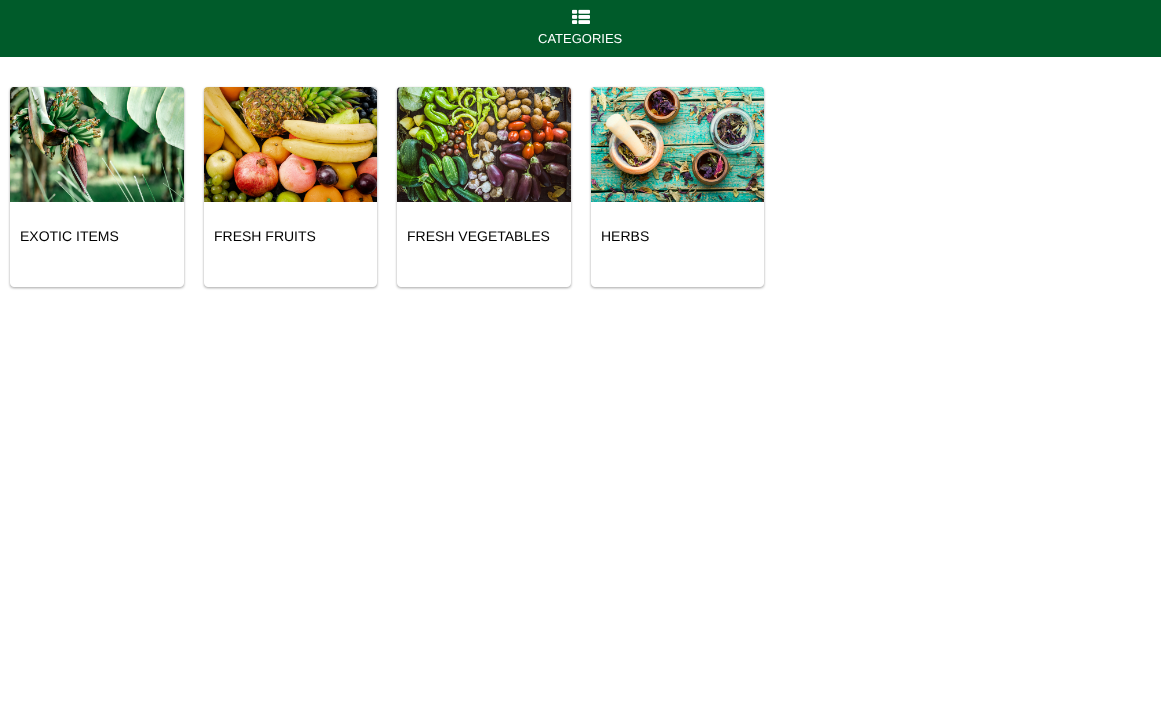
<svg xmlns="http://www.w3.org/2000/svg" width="1161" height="715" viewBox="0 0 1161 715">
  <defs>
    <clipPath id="clip1"><path d="M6 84H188V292H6ZM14 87H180C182 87 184 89 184 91V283C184 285 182 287 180 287H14C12 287 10 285 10 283V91C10 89 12 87 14 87Z" clip-rule="evenodd"/></clipPath>
    <clipPath id="clip2"><path d="M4 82H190V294H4ZM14 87H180C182 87 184 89 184 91V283C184 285 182 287 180 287H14C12 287 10 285 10 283V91C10 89 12 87 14 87Z" clip-rule="evenodd"/></clipPath>
    <clipPath id="clip3"><path d="M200 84H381V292H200ZM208 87H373C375 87 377 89 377 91V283C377 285 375 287 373 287H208C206 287 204 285 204 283V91C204 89 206 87 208 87Z" clip-rule="evenodd"/></clipPath>
    <clipPath id="clip4"><path d="M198 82H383V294H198ZM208 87H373C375 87 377 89 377 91V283C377 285 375 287 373 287H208C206 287 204 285 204 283V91C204 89 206 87 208 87Z" clip-rule="evenodd"/></clipPath>
    <clipPath id="clip5"><path d="M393 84H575V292H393ZM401 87H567C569 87 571 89 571 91V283C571 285 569 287 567 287H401C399 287 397 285 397 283V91C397 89 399 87 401 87Z" clip-rule="evenodd"/></clipPath>
    <clipPath id="clip6"><path d="M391 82H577V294H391ZM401 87H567C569 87 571 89 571 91V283C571 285 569 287 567 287H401C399 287 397 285 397 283V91C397 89 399 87 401 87Z" clip-rule="evenodd"/></clipPath>
    <clipPath id="clip7"><path d="M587 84H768V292H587ZM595 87H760C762 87 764 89 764 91V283C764 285 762 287 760 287H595C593 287 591 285 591 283V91C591 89 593 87 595 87Z" clip-rule="evenodd"/></clipPath>
    <clipPath id="clip8"><path d="M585 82H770V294H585ZM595 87H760C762 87 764 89 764 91V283C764 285 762 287 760 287H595C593 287 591 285 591 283V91C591 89 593 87 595 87Z" clip-rule="evenodd"/></clipPath>
  </defs>
  <rect width="100%" height="100%" fill="#fff"/>
  <path d="M0 0h1161v57H0z" fill="#005b2a"/>
  <image x="572" y="9" width="18" height="15" href="img/1.png"/>
  <g clip-path="url(#clip1)">
    <rect x="10" y="88" width="174" height="200" rx="4" fill="#0000003d" filter="blur(1px)"/>
  </g>
  <g clip-path="url(#clip2)">
    <rect x="10" y="88" width="174" height="200" rx="4" fill="#0000001f" filter="blur(1.5px)"/>
  </g>
  <image x="10" y="87" width="174" height="115" href="img/2.png"/>
  <g clip-path="url(#clip3)">
    <rect x="204" y="88" width="173" height="200" rx="4" fill="#0000003d" filter="blur(1px)"/>
  </g>
  <g clip-path="url(#clip4)">
    <rect x="204" y="88" width="173" height="200" rx="4" fill="#0000001f" filter="blur(1.5px)"/>
  </g>
  <image x="204" y="87" width="173" height="115" href="img/3.png"/>
  <g clip-path="url(#clip5)">
    <rect x="397" y="88" width="174" height="200" rx="4" fill="#0000003d" filter="blur(1px)"/>
  </g>
  <g clip-path="url(#clip6)">
    <rect x="397" y="88" width="174" height="200" rx="4" fill="#0000001f" filter="blur(1.5px)"/>
  </g>
  <image x="397" y="87" width="174" height="115" href="img/4.png"/>
  <g clip-path="url(#clip7)">
    <rect x="591" y="88" width="173" height="200" rx="4" fill="#0000003d" filter="blur(1px)"/>
  </g>
  <g clip-path="url(#clip8)">
    <rect x="591" y="88" width="173" height="200" rx="4" fill="#0000001f" filter="blur(1.5px)"/>
  </g>
  <image x="591" y="87" width="173" height="115" href="img/5.png"/>
  <text x="538" y="43" font-family="Liberation Sans" font-size="13" fill="#fff">CATEGORIES</text>
  <g font-family="Liberation Sans" font-size="14" fill="#000">
    <text x="20" y="241">EXOTIC ITEMS</text>
    <text x="214" y="241">FRESH FRUITS</text>
    <text x="407" y="241">FRESH VEGETABLES</text>
    <text x="601" y="241">HERBS</text>
  </g>
</svg>
